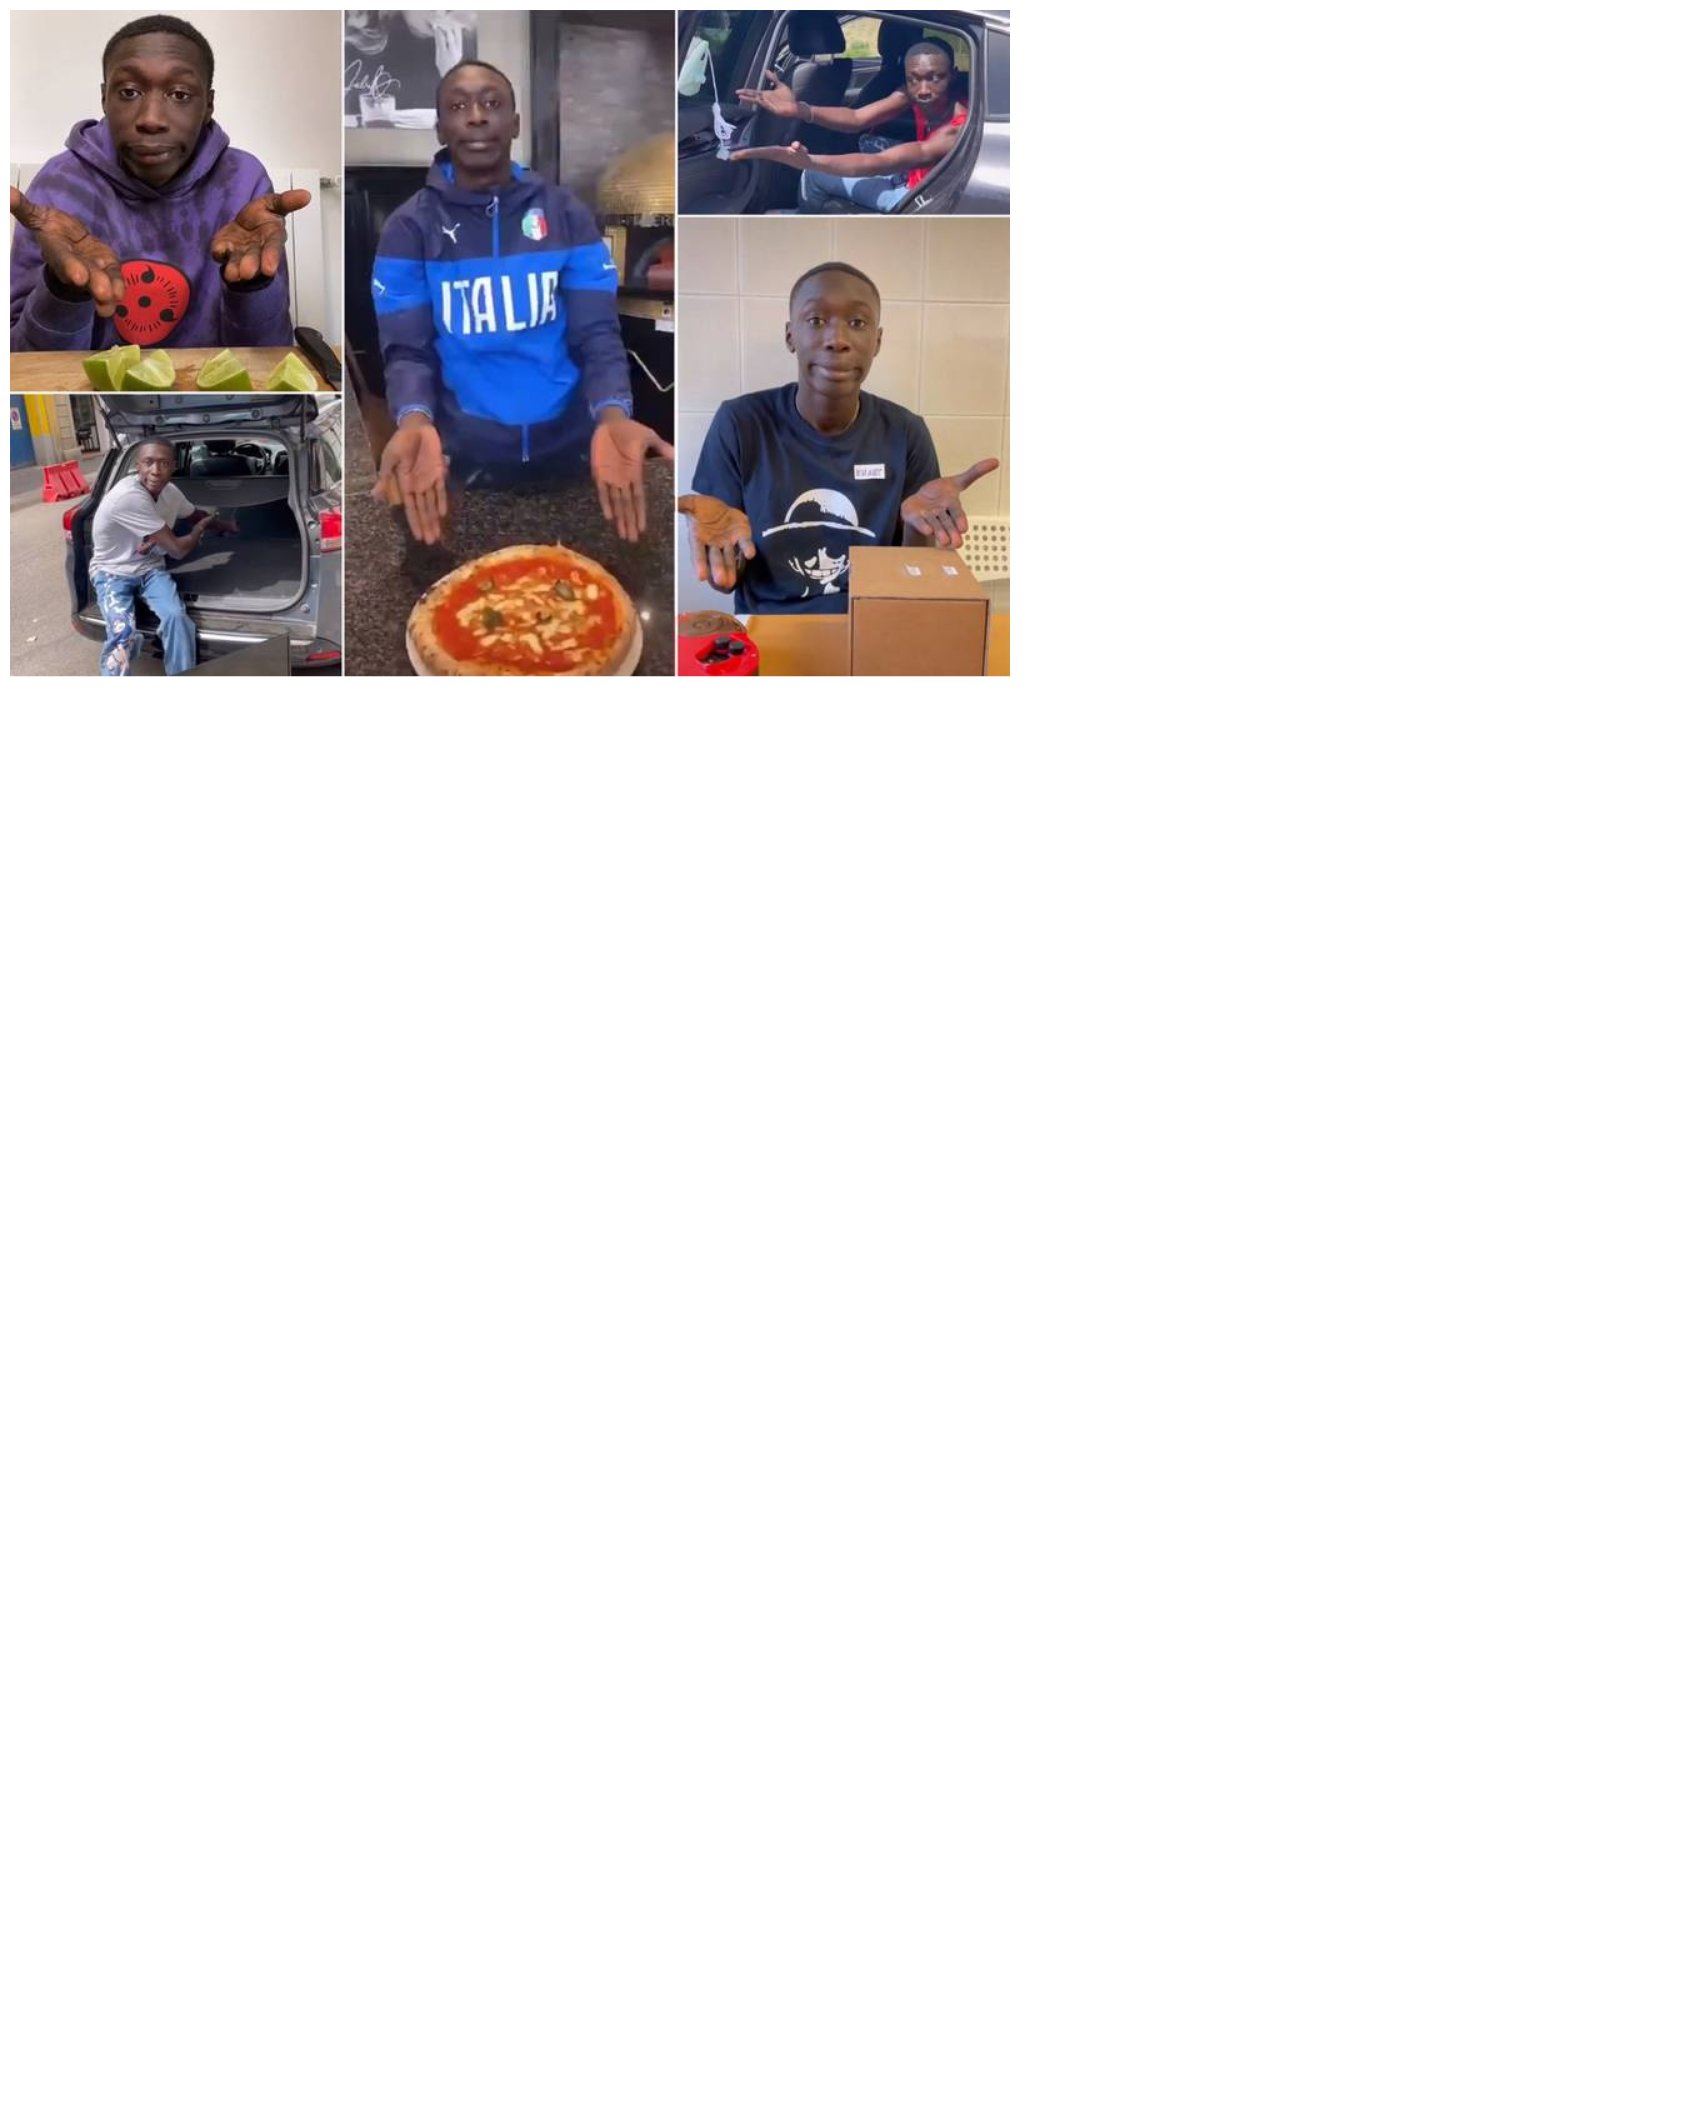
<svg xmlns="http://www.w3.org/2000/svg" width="1695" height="2101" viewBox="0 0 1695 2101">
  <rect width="100%" height="100%" fill="#fff"/>
  <image x="10" y="10" width="1000" height="667" href="img/1.png"/>
</svg>
